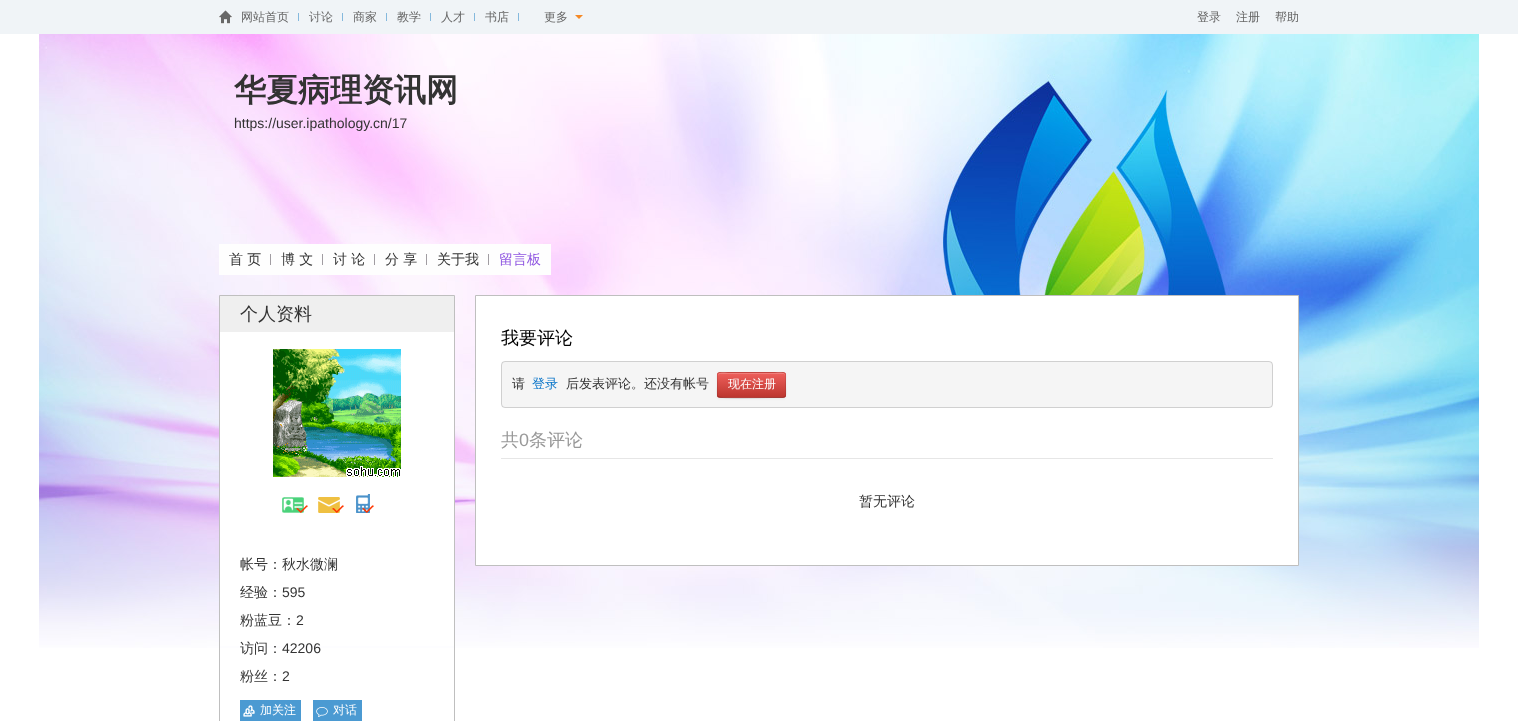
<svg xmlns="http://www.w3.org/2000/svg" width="1518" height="721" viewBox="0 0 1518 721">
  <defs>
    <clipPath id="clip1"><rect x="717" y="372" width="69" height="26" rx="3"/></clipPath>
    <linearGradient id="g1" gradientUnits="userSpaceOnUse" x1="752" y1="373" x2="752" y2="397"><stop offset="0" stop-color="#ee5f5b"/><stop offset="1" stop-color="#bd362f"/></linearGradient>
  </defs>
  <rect width="100%" height="100%" fill="#fff"/>
  <image x="39" y="34" width="1440" height="614" href="img/1.png"/>
  <path d="M0 0h1518v34H0z" fill="#f0f4f7"/>
  <image x="219" y="10" width="13" height="14" href="img/2.png"/>
  <path d="M298 13h1v8H298z" fill="#85b9dd"/>
  <path d="M342 13h1v8H342z" fill="#85b9dd"/>
  <path d="M386 13h1v8H386z" fill="#85b9dd"/>
  <path d="M430 13h1v8H430z" fill="#85b9dd"/>
  <path d="M474 13h1v8H474z" fill="#85b9dd"/>
  <path d="M518 13h1v8H518z" fill="#85b9dd"/>
  <path d="M575 15H583L579 19Z" fill="#f58926"/>
  <path d="M219 244h332v31H219z" fill="#fefefe"/>
  <path d="M270 254h1v11H270z" fill="#a19da2"/>
  <path d="M322 254h1v11H322z" fill="#a19da2"/>
  <path d="M374 254h1v11H374z" fill="#a19da2"/>
  <path d="M426 254h1v11H426z" fill="#a19da2"/>
  <path d="M488 254h1v11H488z" fill="#a19da2"/>
  <path d="M220 332h234v314H220z" fill="#fff"/>
  <path d="M219.5 295.5h235v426H219.5z" fill="none" stroke="#bfbfbf"/>
  <path d="M220 296h234v36H220z" fill="#efefef"/>
  <image x="273" y="349" width="128" height="128" href="img/3.png"/>
  <image x="282" y="497" width="26" height="16" href="img/4.png"/>
  <image x="318" y="497" width="26" height="16" href="img/5.png"/>
  <image x="356" y="494" width="18" height="19" href="img/6.png"/>
  <path d="M240 700h61v21H240z" fill="#4b9ad2"/>
  <image x="243" y="705" width="12" height="12" href="img/7.png"/>
  <path d="M313 700h49v21H313z" fill="#4b9ad2"/>
  <image x="316" y="707" width="12" height="10" href="img/8.png"/>
  <path d="M475.5 295.5h823v270H475.5z" fill="#fff" stroke="#bfbfbf"/>
  <rect x="501" y="361" width="772" height="47" rx="4" fill="#f5f5f5"/>
  <rect x="501.5" y="361.5" width="771" height="46" rx="3.5" fill="none" stroke="#00000026"/>
  <rect x="717" y="373" width="69" height="26" rx="3" fill="#0000000d" filter="blur(1px)"/>
  <rect x="717" y="372" width="69" height="26" rx="3" fill="#da4f49"/>
  <g clip-path="url(#clip1)">
    <path d="M717 373h69v24H717z" fill="url(#g1)"/>
  </g>
  <path d="M720 374H784L785 376C785 370 776 373 772 373H730C727 373 718 370 718 376C718 375 719 374 720 374Z" fill="#ffffff33"/>
  <path d="M785 397L783 397.5H772.5C766.5 397.5 720.5 398.5 718.5 397H718" fill="none" stroke="#00000040"/>
  <path d="M718 397C716.5 395 717.5 387.5 717.5 385C717.5 370 715 372.5 730.5 372.5H772.5C788 372.5 785.5 370 785.5 385C785.5 387.5 786.5 395 785 397" fill="none" stroke="#0000001a"/>
  <path d="M501 458h772v1H501z" fill="#e6e6e6"/>
  <g font-family="WenQuanYi Zen Hei" font-size="12" font-weight="500" fill="#666">
    <text x="241" y="21">网站首页</text>
    <text x="309" y="21">讨论</text>
    <text x="353" y="21">商家</text>
    <text x="397" y="21">教学</text>
    <text x="441" y="21">人才</text>
    <text x="485" y="21">书店</text>
    <text x="544" y="21">更多</text>
    <text x="1197" y="21">登录</text>
    <text x="1236" y="21">注册</text>
    <text x="1275" y="21">帮助</text>
  </g>
  <text x="234" y="101" font-family="WenQuanYi Zen Hei" font-size="32" font-weight="bold" fill="#333">华夏病理资讯网</text>
  <text x="234" y="128" font-family="Liberation Sans" font-size="14" fill="#333">https://user.ipathology.cn/17</text>
  <g font-family="WenQuanYi Zen Hei" font-size="14" font-weight="500" fill="#333">
    <text x="229" y="264">首 页</text>
    <text x="281" y="264">博 文</text>
    <text x="333" y="264">讨 论</text>
    <text x="385" y="264">分 享</text>
    <text x="437" y="264">关于我</text>
  </g>
  <text x="499" y="264" font-family="WenQuanYi Zen Hei" font-size="14" font-weight="500" fill="#8f56e1">留言板</text>
  <text x="240" y="320" font-family="WenQuanYi Zen Hei" font-size="18" font-weight="500" fill="#333">个人资料</text>
  <g font-family="WenQuanYi Zen Hei" font-size="14" font-weight="500" fill="#333">
    <text x="240" y="569">帐号：秋水微澜</text>
    <text x="240" y="597">经验：</text>
  </g>
  <text x="282" y="597" font-family="Liberation Sans" font-size="14" fill="#333">595</text>
  <text x="240" y="625" font-family="WenQuanYi Zen Hei" font-size="14" font-weight="500" fill="#333">粉蓝豆：</text>
  <text x="296" y="625" font-family="Liberation Sans" font-size="14" fill="#333">2</text>
  <text x="240" y="653" font-family="WenQuanYi Zen Hei" font-size="14" font-weight="500" fill="#333">访问：</text>
  <text x="282" y="653" font-family="Liberation Sans" font-size="14" fill="#333">42206</text>
  <text x="240" y="681" font-family="WenQuanYi Zen Hei" font-size="14" font-weight="500" fill="#333">粉丝：</text>
  <text x="282" y="681" font-family="Liberation Sans" font-size="14" fill="#333">2</text>
  <g font-family="WenQuanYi Zen Hei" font-size="12" font-weight="500" fill="#fff">
    <text x="260" y="714">加关注</text>
    <text x="333" y="714">对话</text>
  </g>
  <text x="501" y="344" font-family="WenQuanYi Zen Hei" font-size="18" font-weight="500" fill="#000">我要评论</text>
  <text x="512" y="388" font-family="WenQuanYi Zen Hei" font-size="13" font-weight="500" fill="#333">请</text>
  <text x="532" y="388" font-family="WenQuanYi Zen Hei" font-size="13" font-weight="500" fill="#0673c8">登录</text>
  <text x="566" y="388" font-family="WenQuanYi Zen Hei" font-size="13" font-weight="500" fill="#333">后发表评论。还没有帐号</text>
  <text x="728" y="388" font-family="WenQuanYi Zen Hei" font-size="12" font-weight="500" fill="#fff">现在注册</text>
  <text x="501" y="446" font-family="WenQuanYi Zen Hei" font-size="18" font-weight="500" fill="#999">共</text>
  <text x="519" y="446" font-family="Liberation Sans" font-size="18" fill="#999">0</text>
  <text x="529" y="446" font-family="WenQuanYi Zen Hei" font-size="18" font-weight="500" fill="#999">条评论</text>
  <text x="859" y="506" font-family="WenQuanYi Zen Hei" font-size="14" font-weight="500" fill="#333">暂无评论</text>
</svg>
